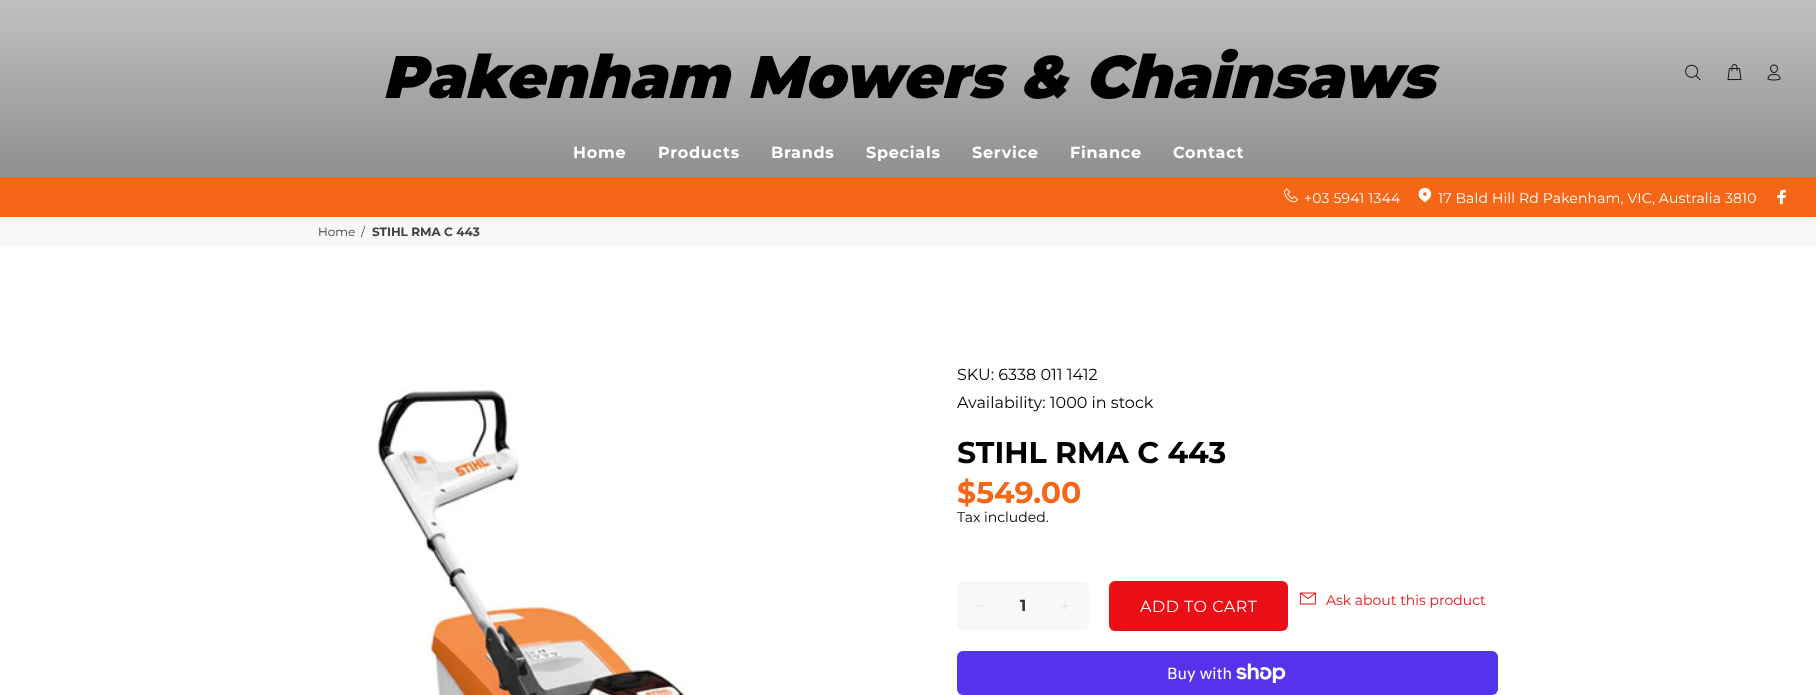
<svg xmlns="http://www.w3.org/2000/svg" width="1816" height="695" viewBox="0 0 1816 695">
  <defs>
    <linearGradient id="g1" gradientUnits="userSpaceOnUse" x1="908" y1="0" x2="908" y2="177"><stop offset="0" stop-color="#bec0c2"/><stop offset="1" stop-color="#8d8f90"/></linearGradient>
  </defs>
  <rect width="100%" height="100%" fill="#fff"/>
  <path d="M0 0h1816v177H0z" fill="url(#g1)"/>
  <image x="1685" y="64" width="16" height="17" href="img/1.png"/>
  <image x="1727" y="64" width="15" height="17" href="img/2.png"/>
  <image x="1767" y="64" width="14" height="17" href="img/3.png"/>
  <path d="M0 177h1816v40H0z" fill="#f56717"/>
  <image x="1284" y="188" width="14" height="15" href="img/4.png"/>
  <image x="1418" y="187" width="14" height="16" href="img/5.png"/>
  <image x="1777" y="189" width="10" height="16" href="img/6.png"/>
  <path d="M0 217h1816v30H0z" fill="#f7f8fa"/>
  <image x="377" y="389" width="313" height="306" href="img/7.png"/>
  <rect x="957" y="581" width="132" height="50" rx="6" fill="#f7f8fa"/>
  <path d="M986.5 605.5V606H977.5L978 605.5Z" fill="#d8d8d8"/>
  <image x="1060" y="601" width="10" height="9" href="img/8.png"/>
  <rect x="1109" y="581" width="179" height="50" rx="6" fill="#eb0e14"/>
  <rect x="957" y="651" width="541" height="44" rx="6" fill="#5433eb"/>
  <image x="1236" y="663" width="50" height="20" href="img/9.png"/>
  <image x="1299" y="592" width="17" height="13" href="img/10.png"/>
  <text x="382" y="98" font-family="Montserrat" font-size="60" font-weight="900" font-style="italic" fill="#000">Pakenham Mowers &amp; Chainsaws</text>
  <g font-family="Montserrat" font-size="16" font-weight="bold" letter-spacing="0.75" fill="#fff">
    <text x="573" y="158">Home</text>
    <text x="658" y="158">Products</text>
    <text x="771" y="158">Brands</text>
    <text x="866" y="158">Specials</text>
    <text x="972" y="158">Service</text>
    <text x="1070" y="158">Finance</text>
    <text x="1173" y="158">Contact</text>
  </g>
  <g font-family="Montserrat" font-size="14" letter-spacing="0.15" fill="#fff">
    <text x="1304" y="203">+03 5941 1344</text>
    <text x="1438" y="203">17 Bald Hill Rd Pakenham, VIC, Australia 3810</text>
  </g>
  <g font-family="Montserrat" font-size="12" fill="#404042">
    <text x="318" y="236">Home</text>
    <text x="361" y="236">/</text>
  </g>
  <text x="372" y="236" font-family="Montserrat" font-size="12" font-weight="bold" fill="#404042">STIHL RMA C 443</text>
  <g font-family="Montserrat" font-size="16" fill="#000">
    <text x="957" y="380">SKU: 6338 011 1412</text>
    <text x="957" y="408">Availability: 1000 in stock</text>
  </g>
  <text x="957" y="463" font-family="Montserrat" font-size="30" font-weight="bold" fill="#000">STIHL RMA C 443</text>
  <text x="957" y="503" font-family="Montserrat" font-size="30" font-weight="bold" fill="#f56717">$549.00</text>
  <text x="957" y="522" font-family="Montserrat" font-size="14" fill="#000">Tax included.</text>
  <text x="1020" y="611" font-family="Montserrat" font-size="16" font-weight="bold" fill="#333">1</text>
  <text x="1140" y="612" font-family="Montserrat" font-size="16" letter-spacing="0.5" fill="#fff">ADD TO CART</text>
  <text x="1167" y="679" font-family="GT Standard" font-size="16" fill="#fff">Buy with</text>
  <text x="1326" y="605" font-family="Montserrat" font-size="14" fill="#eb0e14">Ask about this product</text>
</svg>
